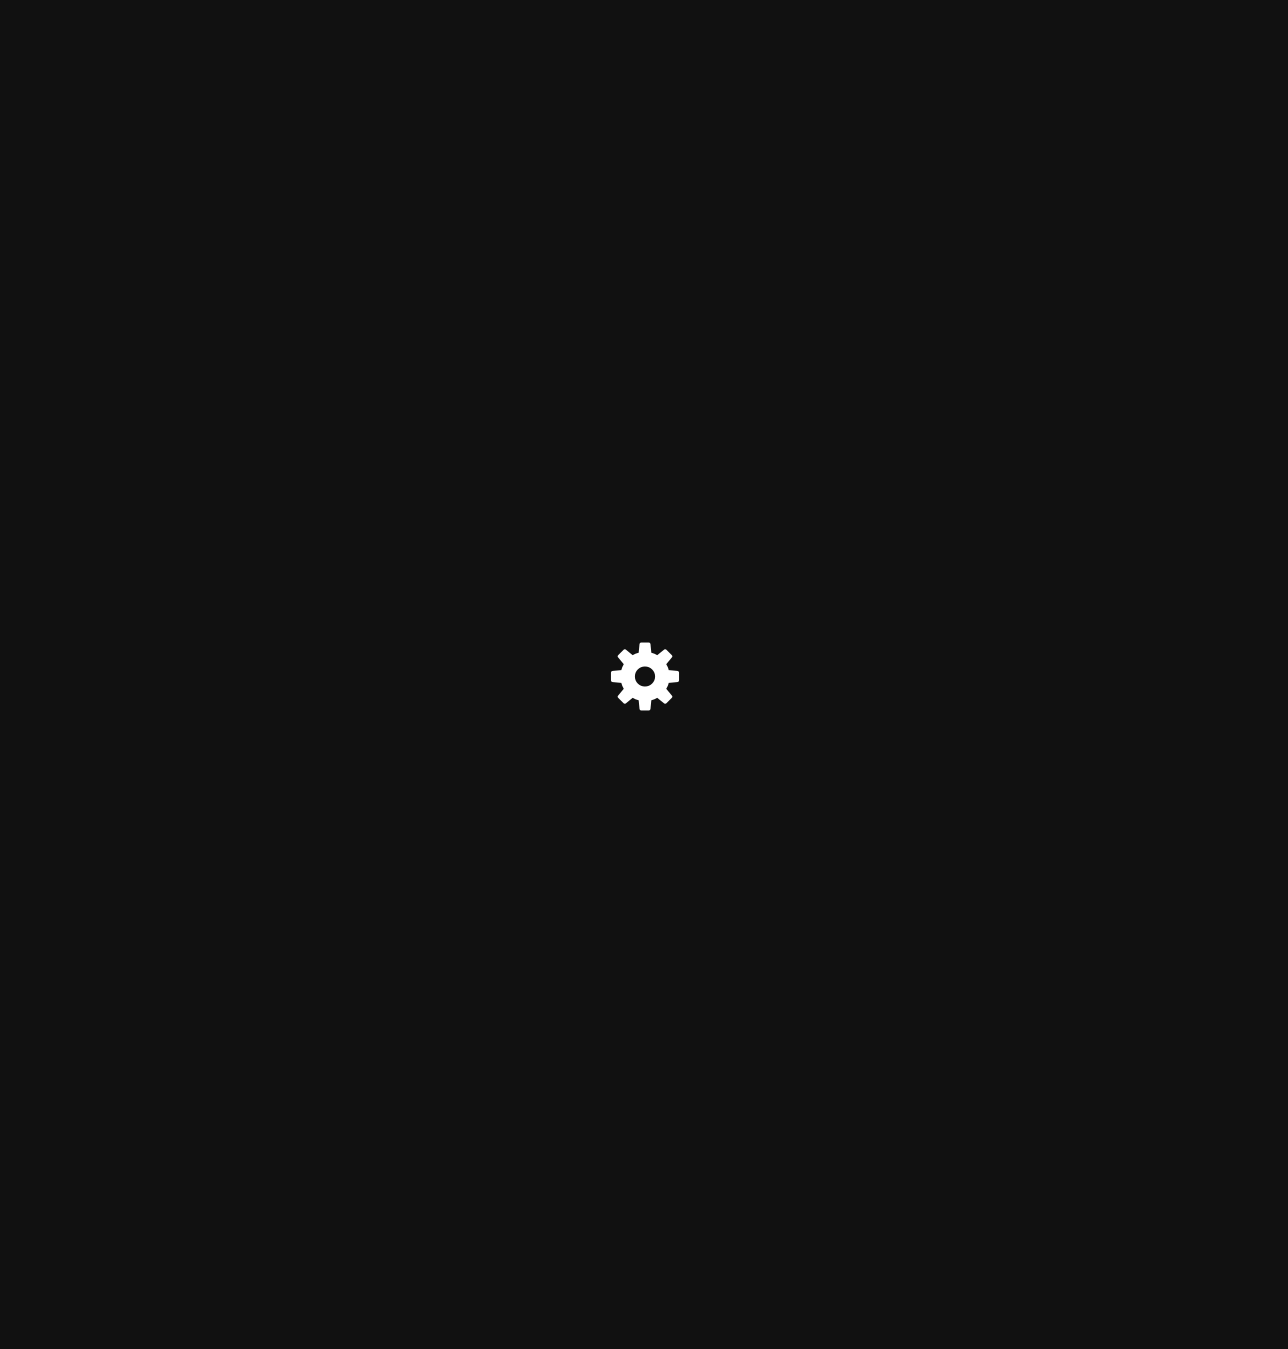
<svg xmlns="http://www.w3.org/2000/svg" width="1288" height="1349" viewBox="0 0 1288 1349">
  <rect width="100%" height="100%" fill="#111"/>
  <image x="610" y="642" width="70" height="69" href="img/1.png"/>
</svg>
